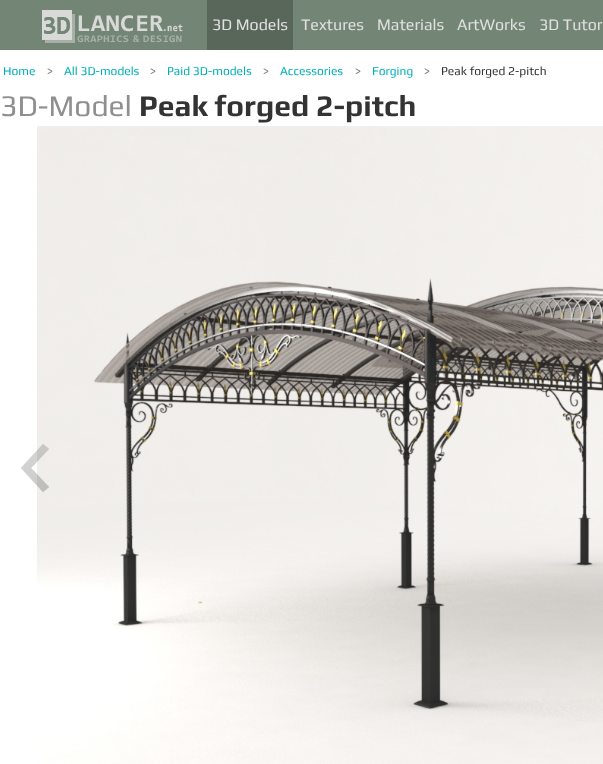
<svg xmlns="http://www.w3.org/2000/svg" width="603" height="764" viewBox="0 0 603 764">
  <rect width="100%" height="100%" fill="#fff"/>
  <path d="M0 0h603v50H0z" fill="#738575"/>
  <image x="42" y="10" width="141" height="33" href="img/1.png"/>
  <path d="M207 0h86v50H207z" fill="#59675b"/>
  <image x="37" y="126" width="566" height="638" href="img/3.png"/>
  <image x="21" y="444" width="28" height="48" href="img/2.png"/>
  <g font-family="Play" font-size="16" fill="#e0e0e0">
    <text x="212" y="30">3D Models</text>
    <text x="301" y="30">Textures</text>
    <text x="377" y="30">Materials</text>
    <text x="457" y="30">ArtWorks</text>
    <text x="539" y="30">3D Tutor</text>
  </g>
  <text x="3" y="75" font-family="Play" font-size="12" fill="#00b0b9">Home</text>
  <text x="47" y="75" font-family="Play" font-size="12" fill="#738575">&gt;</text>
  <text x="64" y="75" font-family="Play" font-size="12" fill="#00b0b9">All 3D-models</text>
  <text x="150" y="75" font-family="Play" font-size="12" fill="#738575">&gt;</text>
  <text x="167" y="75" font-family="Play" font-size="12" fill="#00b0b9">Paid 3D-models</text>
  <text x="263" y="75" font-family="Play" font-size="12" fill="#738575">&gt;</text>
  <text x="280" y="75" font-family="Play" font-size="12" fill="#00b0b9">Accessories</text>
  <text x="355" y="75" font-family="Play" font-size="12" fill="#738575">&gt;</text>
  <text x="372" y="75" font-family="Play" font-size="12" fill="#00b0b9">Forging</text>
  <text x="424" y="75" font-family="Play" font-size="12" fill="#738575">&gt;</text>
  <text x="441" y="75" font-family="Play" font-size="12" fill="#333">Peak forged 2-pitch</text>
  <text x="0" y="116" font-family="Play" font-size="30" fill="#8f8f8f">3D-Model</text>
  <text x="139" y="116" font-family="Play" font-size="30" font-weight="bold" fill="#333">Peak forged 2-pitch</text>
</svg>
